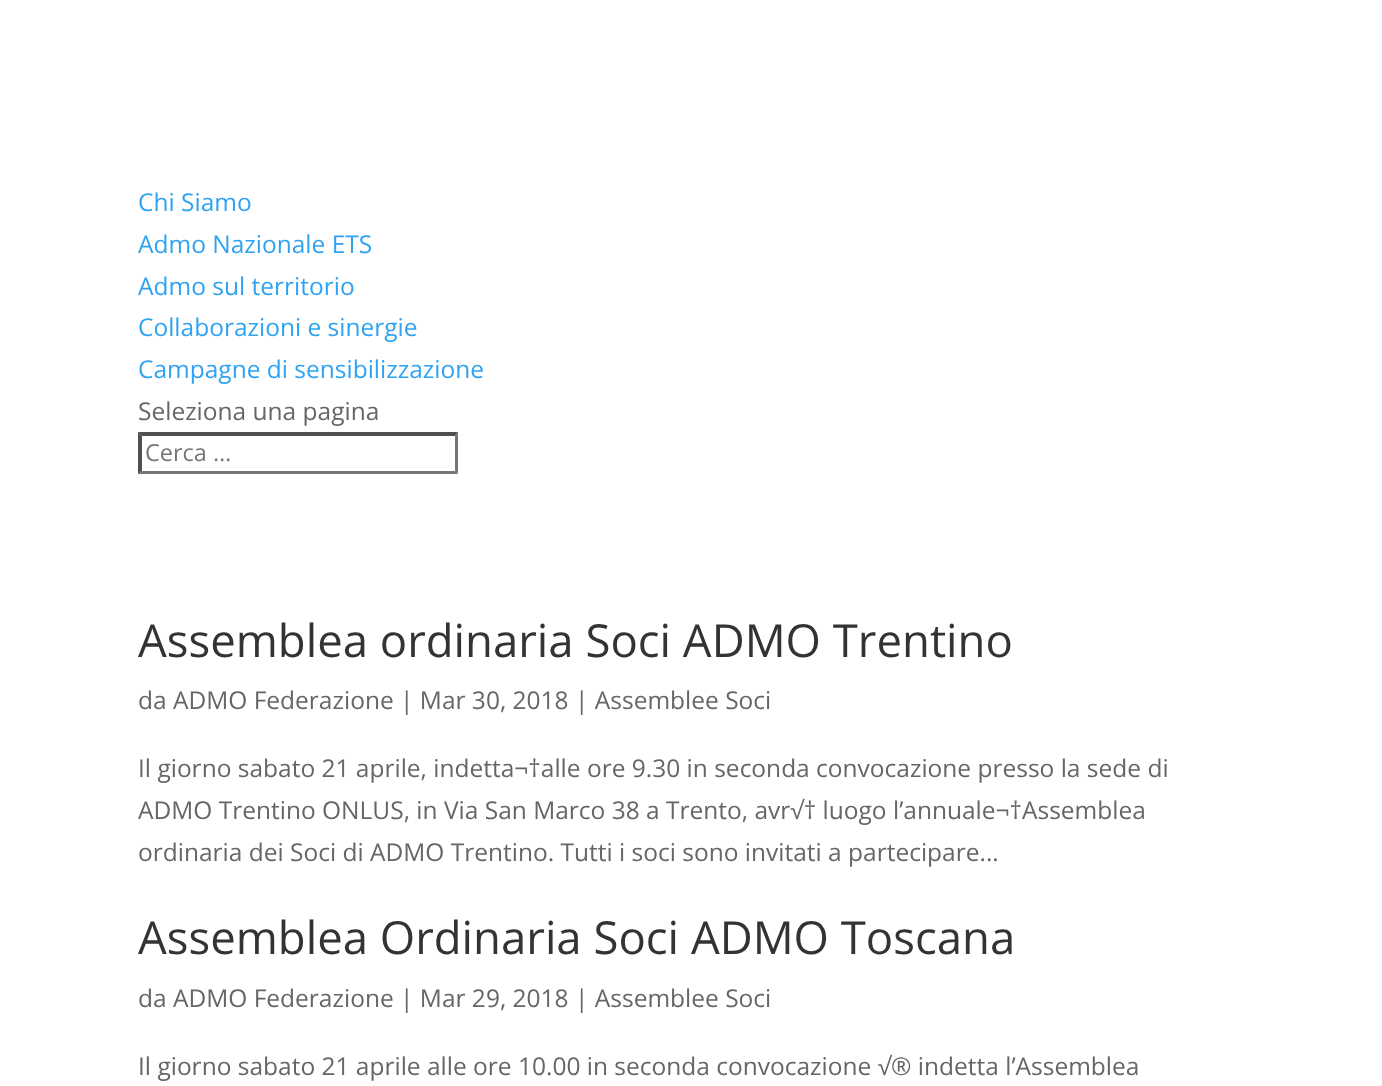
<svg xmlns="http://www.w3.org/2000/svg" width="1382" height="1086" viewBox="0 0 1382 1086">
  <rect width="100%" height="100%" fill="#fff"/>
  <path d="M138 432H458L455 436H142Z" fill="#4f4f4f"/>
  <path d="M458 432V474L455 471V436Z" fill="#767676"/>
  <path d="M458 474H138L142 471H455Z" fill="#767676"/>
  <path d="M138 474V432L142 436V471Z" fill="#4f4f4f"/>
  <g font-family="Open Sans" font-size="24.5" fill="#2ea3f2">
    <text x="138" y="211">Chi Siamo</text>
    <text x="138" y="253">Admo Nazionale ETS</text>
    <text x="138" y="295">Admo sul territorio</text>
    <text x="138" y="336">Collaborazioni e sinergie</text>
    <text x="138" y="378">Campagne di sensibilizzazione</text>
  </g>
  <text x="138" y="420" font-family="Open Sans" font-size="24.5" fill="#666">Seleziona una pagina</text>
  <text x="145" y="461" font-family="Open Sans" font-size="23.5" fill="#757575">Cerca …</text>
  <text x="138" y="657" font-family="Open Sans" font-size="45.5" fill="#333">Assemblea ordinaria Soci ADMO Trentino</text>
  <g font-family="Open Sans" font-size="24.5" fill="#666">
    <text x="138" y="709">da ADMO Federazione | Mar 30, 2018 | Assemblee Soci</text>
    <text x="138" y="777">Il giorno sabato 21 aprile, indetta¬†alle ore 9.30 in seconda convocazione presso la sede di</text>
    <text x="138" y="819">ADMO Trentino ONLUS, in Via San Marco 38 a Trento, avr√† luogo l’annuale¬†Assemblea</text>
    <text x="138" y="861">ordinaria dei Soci di ADMO Trentino. Tutti i soci sono invitati a partecipare...</text>
  </g>
  <text x="138" y="954" font-family="Open Sans" font-size="45.5" fill="#333">Assemblea Ordinaria Soci ADMO Toscana</text>
  <g font-family="Open Sans" font-size="24.5" fill="#666">
    <text x="138" y="1007">da ADMO Federazione | Mar 29, 2018 | Assemblee Soci</text>
    <text x="138" y="1075">Il giorno sabato 21 aprile alle ore 10.00 in seconda convocazione √® indetta l’Assemblea</text>
  </g>
</svg>
